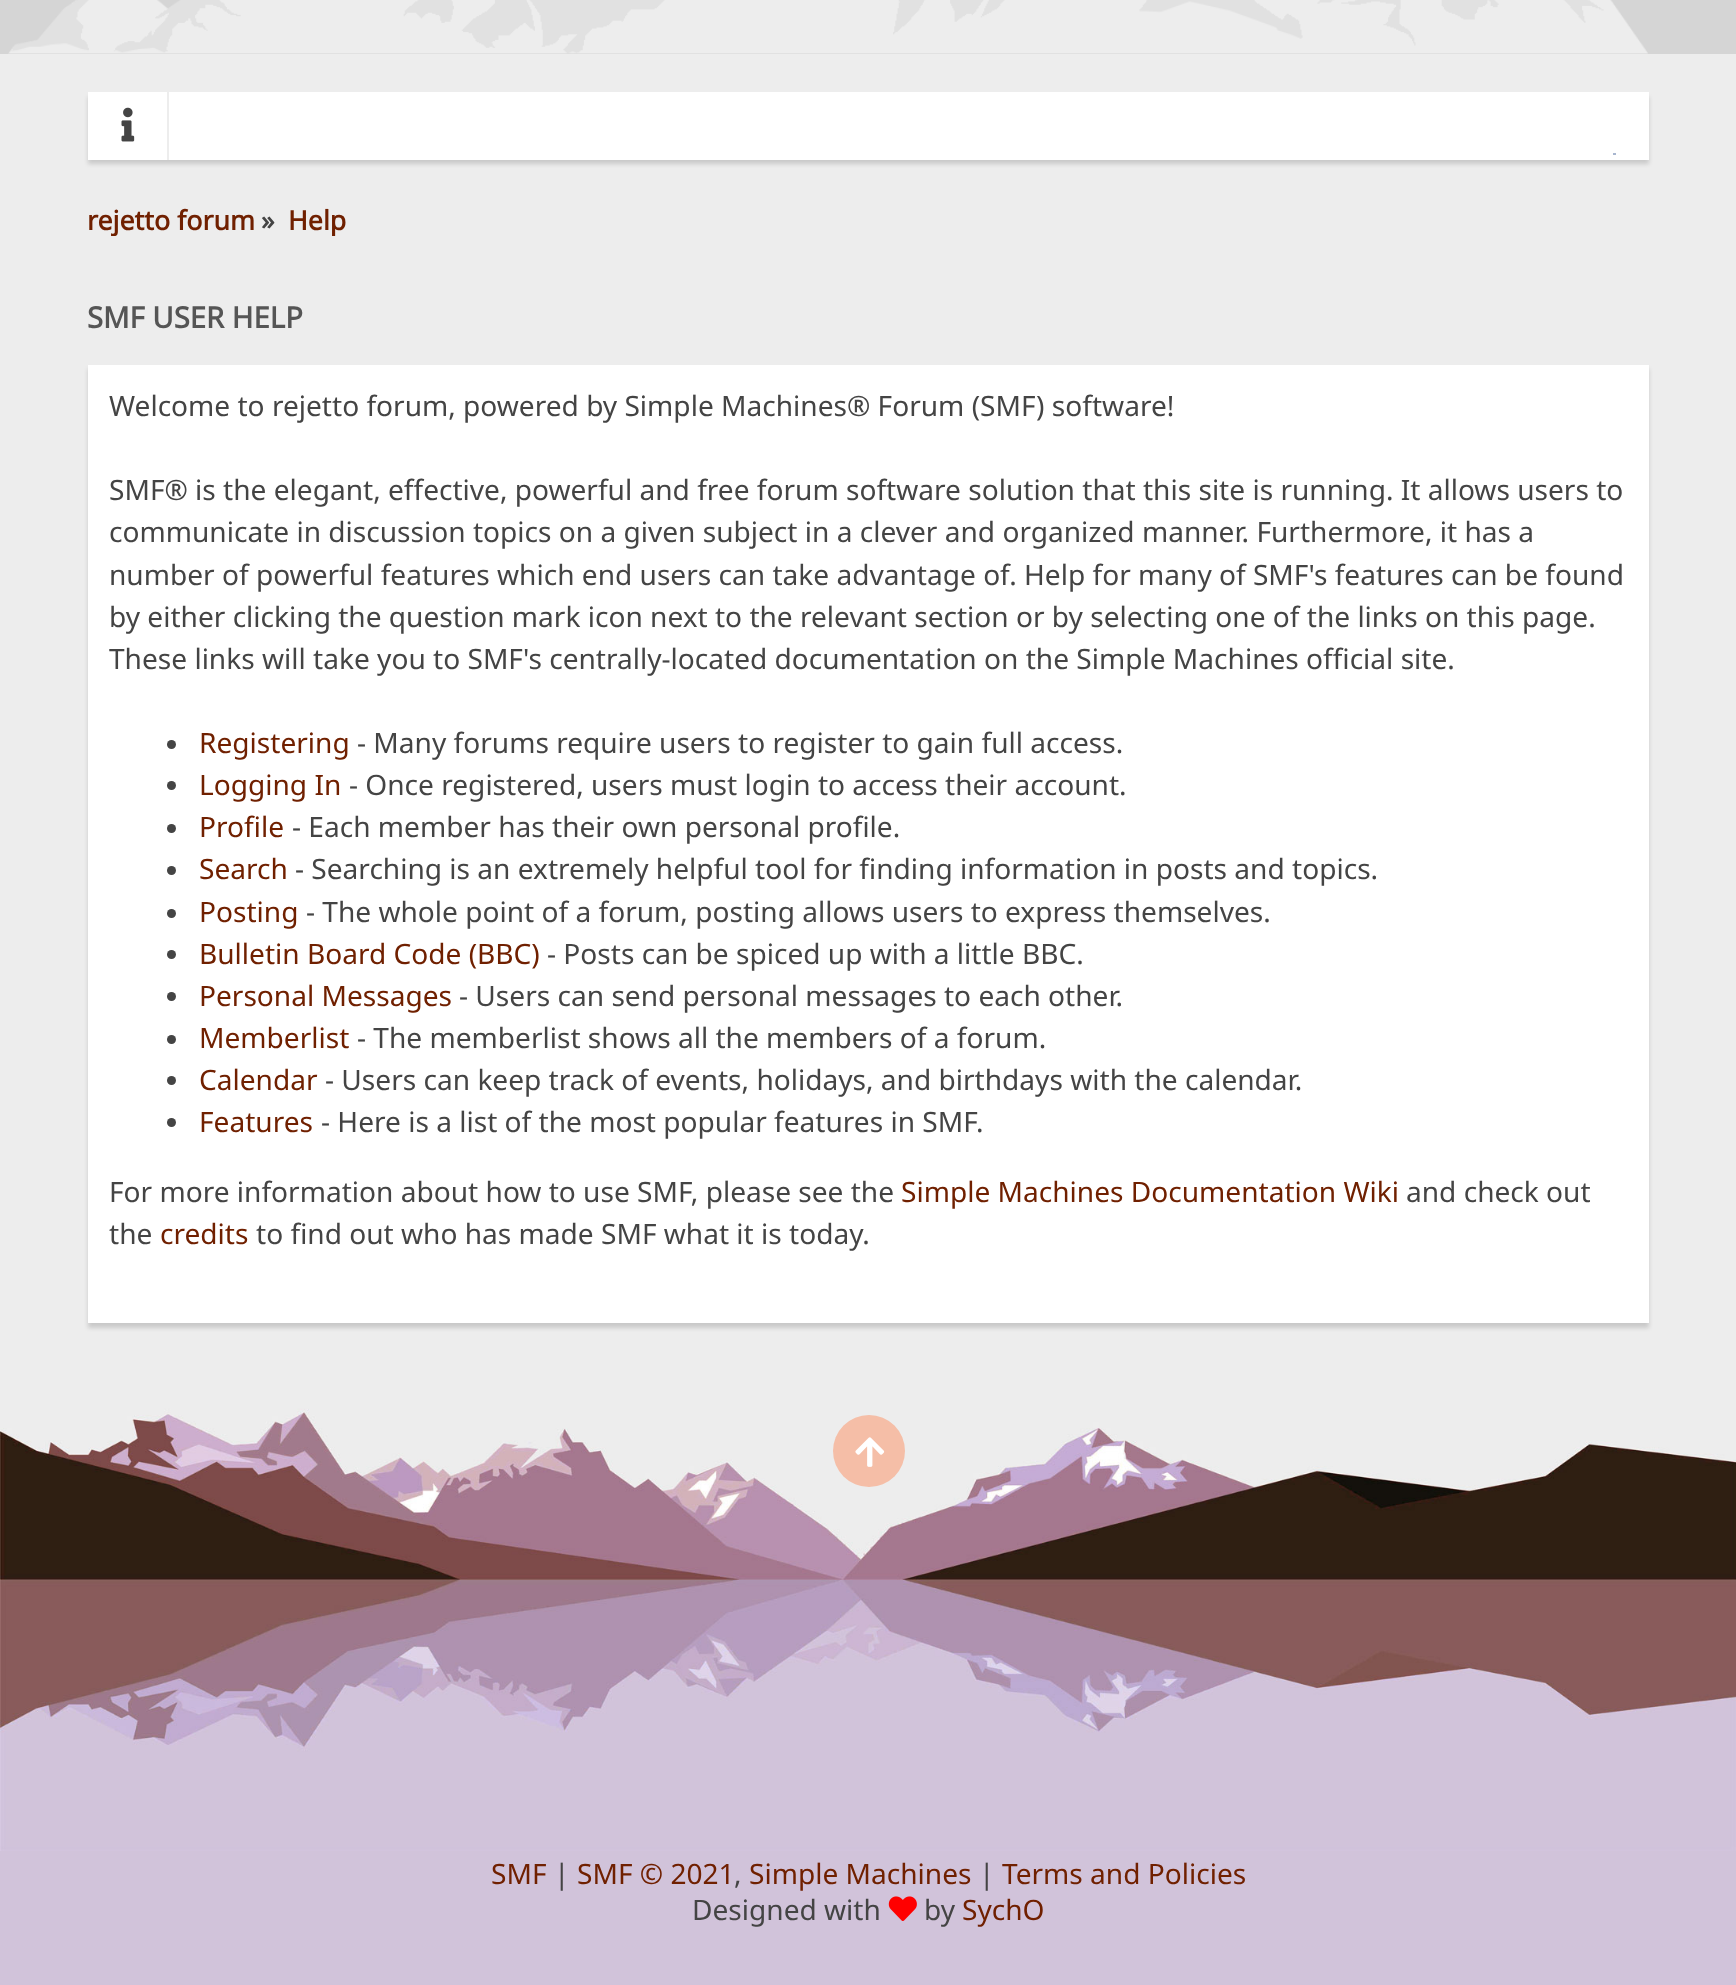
<svg xmlns="http://www.w3.org/2000/svg" width="1736" height="1985" viewBox="0 0 1736 1985">
  <defs>
    <clipPath id="clip1"><path d="M88 200h1561v36H88z"/></clipPath>
  </defs>
  <rect width="100%" height="100%" fill="#ededed"/>
  <path d="M0 0h1736v54H0z" fill="#d5d5d5"/>
  <image x="8" y="0" width="1640" height="54" href="img/1.png"/>
  <path d="M88 97h1561v67H88z" fill="#00000026" filter="blur(2px)"/>
  <path d="M88 92h1561v68H88z" fill="#fff"/>
  <path d="M167 92h2v68H167z" fill="#ededed"/>
  <image x="121" y="107" width="14" height="35" href="img/2.png"/>
  <path d="M1613 153h3v2H1613z" fill="#a8b6cf"/>
  <path d="M88 369h1561v959H88z" fill="#00000026" filter="blur(2px)"/>
  <path d="M88 365h1561v958H88z" fill="#fff"/>
  <circle cx="171.5" cy="744.5" r="4.5" fill="#444"/>
  <circle cx="171.5" cy="785.5" r="4.5" fill="#444"/>
  <circle cx="171.5" cy="828.5" r="4.5" fill="#444"/>
  <circle cx="171.5" cy="870.5" r="4.5" fill="#444"/>
  <circle cx="171.5" cy="913.5" r="4.5" fill="#444"/>
  <circle cx="171.5" cy="954.5" r="4.5" fill="#444"/>
  <circle cx="171.5" cy="996.5" r="4.5" fill="#444"/>
  <circle cx="171.5" cy="1039.5" r="4.5" fill="#444"/>
  <circle cx="171.5" cy="1080.5" r="4.5" fill="#444"/>
  <circle cx="171.5" cy="1122.5" r="4.5" fill="#444"/>
  <path d="M0 1851h1736v134H0z" fill="#d1c3da"/>
  <image x="0" y="1352" width="1736" height="499" href="img/3.png"/>
  <circle cx="869" cy="1451" r="36" fill="#f5bea7"/>
  <image x="855" y="1437" width="30" height="30" href="img/4.png"/>
  <image x="888" y="1896" width="29" height="25" href="img/5.png"/>
  <g clip-path="url(#clip1)">
    <text x="87" y="230" font-family="Noto Sans" font-size="26.75" font-weight="bold" fill="#702000">rejetto forum</text>
  </g>
  <text x="261" y="230" font-family="Noto Sans" font-size="26.75" font-weight="bold" fill="#444">»</text>
  <g clip-path="url(#clip1)">
    <text x="288" y="230" font-family="Noto Sans" font-size="26.75" font-weight="bold" fill="#702000">Help</text>
  </g>
  <text x="87" y="328" font-family="Noto Sans" font-size="29.25" font-weight="bold" fill="#555">SMF USER HELP</text>
  <g font-family="Noto Sans" font-size="28.08" fill="#444">
    <text x="109" y="416">Welcome to rejetto forum, powered by Simple Machines® Forum (SMF) software!</text>
    <text x="109" y="500">SMF® is the elegant, effective, powerful and free forum software solution that this site is running. It allows users to</text>
    <text x="109" y="542">communicate in discussion topics on a given subject in a clever and organized manner. Furthermore, it has a</text>
    <text x="109" y="585">number of powerful features which end users can take advantage of. Help for many of SMF's features can be found</text>
    <text x="109" y="627">by either clicking the question mark icon next to the relevant section or by selecting one of the links on this page.</text>
    <text x="109" y="669">These links will take you to SMF's centrally-located documentation on the Simple Machines official site.</text>
  </g>
  <text x="199" y="753" font-family="Noto Sans" font-size="28.08" fill="#702000">Registering</text>
  <text x="357" y="753" font-family="Noto Sans" font-size="28.08" fill="#444">- Many forums require users to register to gain full access.</text>
  <text x="199" y="795" font-family="Noto Sans" font-size="28.08" fill="#702000">Logging In</text>
  <text x="349" y="795" font-family="Noto Sans" font-size="28.08" fill="#444">- Once registered, users must login to access their account.</text>
  <text x="199" y="837" font-family="Noto Sans" font-size="28.08" fill="#702000">Profile</text>
  <text x="292" y="837" font-family="Noto Sans" font-size="28.08" fill="#444">- Each member has their own personal profile.</text>
  <text x="199" y="879" font-family="Noto Sans" font-size="28.08" fill="#702000">Search</text>
  <text x="295" y="879" font-family="Noto Sans" font-size="28.08" fill="#444">- Searching is an extremely helpful tool for finding information in posts and topics.</text>
  <text x="199" y="922" font-family="Noto Sans" font-size="28.08" fill="#702000">Posting</text>
  <text x="306" y="922" font-family="Noto Sans" font-size="28.08" fill="#444">- The whole point of a forum, posting allows users to express themselves.</text>
  <text x="199" y="964" font-family="Noto Sans" font-size="28.08" fill="#702000">Bulletin Board Code (BBC)</text>
  <text x="547" y="964" font-family="Noto Sans" font-size="28.08" fill="#444">- Posts can be spiced up with a little BBC.</text>
  <text x="199" y="1006" font-family="Noto Sans" font-size="28.08" fill="#702000">Personal Messages</text>
  <text x="459" y="1006" font-family="Noto Sans" font-size="28.08" fill="#444">- Users can send personal messages to each other.</text>
  <text x="199" y="1048" font-family="Noto Sans" font-size="28.08" fill="#702000">Memberlist</text>
  <text x="357" y="1048" font-family="Noto Sans" font-size="28.08" fill="#444">- The memberlist shows all the members of a forum.</text>
  <text x="199" y="1090" font-family="Noto Sans" font-size="28.08" fill="#702000">Calendar</text>
  <text x="325" y="1090" font-family="Noto Sans" font-size="28.08" fill="#444">- Users can keep track of events, holidays, and birthdays with the calendar.</text>
  <text x="199" y="1132" font-family="Noto Sans" font-size="28.08" fill="#702000">Features</text>
  <g font-family="Noto Sans" font-size="28.08" fill="#444">
    <text x="321" y="1132">- Here is a list of the most popular features in SMF.</text>
    <text x="109" y="1202">For more information about how to use SMF, please see the</text>
  </g>
  <text x="901" y="1202" font-family="Noto Sans" font-size="28.08" fill="#702000">Simple Machines Documentation Wiki</text>
  <g font-family="Noto Sans" font-size="28.08" fill="#444">
    <text x="1406" y="1202">and check out</text>
    <text x="109" y="1244">the</text>
  </g>
  <text x="160" y="1244" font-family="Noto Sans" font-size="28.08" fill="#702000">credits</text>
  <text x="256" y="1244" font-family="Noto Sans" font-size="28.08" fill="#444">to find out who has made SMF what it is today.</text>
  <text x="491" y="1884" font-family="Noto Sans" font-size="28.08" fill="#702000">SMF</text>
  <text x="554" y="1884" font-family="Noto Sans" font-size="28.08" fill="#444">|</text>
  <text x="577" y="1884" font-family="Noto Sans" font-size="28.08" fill="#702000">SMF © 2021</text>
  <text x="734" y="1884" font-family="Noto Sans" font-size="28.08" fill="#444">,</text>
  <text x="749" y="1884" font-family="Noto Sans" font-size="28.08" fill="#702000">Simple Machines</text>
  <text x="979" y="1884" font-family="Noto Sans" font-size="28.08" fill="#444">|</text>
  <text x="1002" y="1884" font-family="Noto Sans" font-size="28.08" fill="#702000">Terms and Policies</text>
  <g font-family="Noto Sans" font-size="28.08" fill="#444">
    <text x="692" y="1920">Designed with</text>
    <text x="924" y="1920">by</text>
  </g>
  <text x="962" y="1920" font-family="Noto Sans" font-size="28.08" fill="#702000">SychO</text>
</svg>
